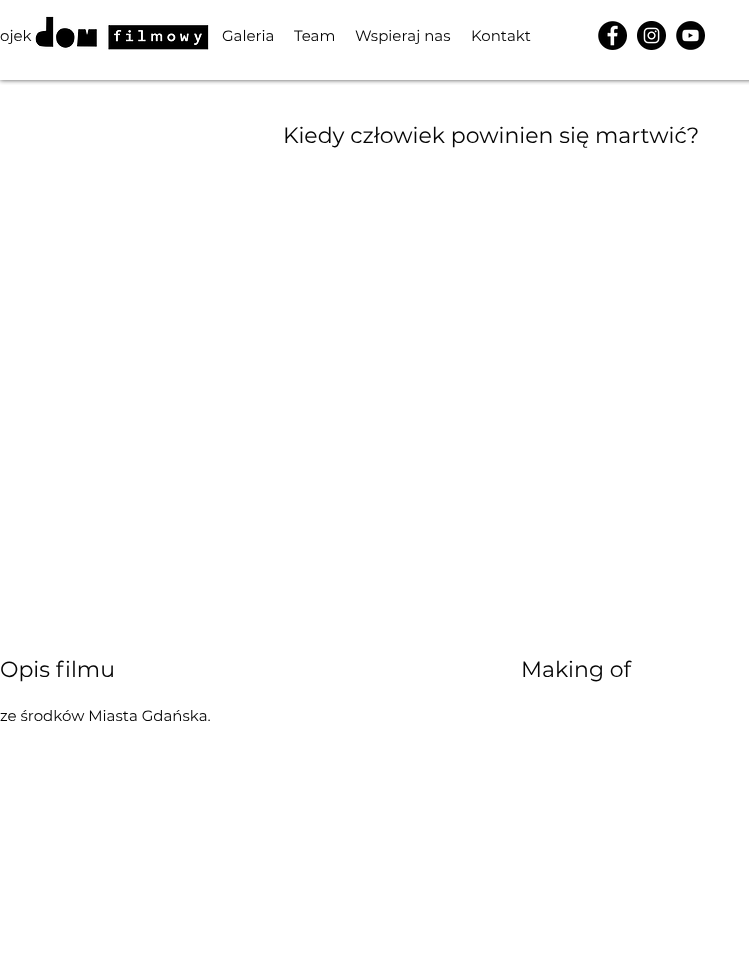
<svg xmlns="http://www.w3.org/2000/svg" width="749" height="958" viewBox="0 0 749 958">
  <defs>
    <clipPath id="clip1"><path d="M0 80h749v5H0z"/></clipPath>
  </defs>
  <rect width="100%" height="100%" fill="#fff"/>
  <g clip-path="url(#clip1)">
    <path d="M0 0h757v80H0z" fill="#000000b3" filter="blur(2.5px)"/>
  </g>
  <image x="32" y="16" width="177" height="34" href="img/1.png"/>
  <image x="598" y="21" width="29" height="29" href="img/2.png"/>
  <image x="637" y="21" width="29" height="29" href="img/3.png"/>
  <image x="676" y="21" width="29" height="29" href="img/4.png"/>
  <g font-family="Montserrat" font-size="15" fill="#050505">
    <text x="0" y="41">ojek</text>
    <text x="222" y="41">Galeria</text>
    <text x="294" y="41">Team</text>
    <text x="355" y="41">Wspieraj nas</text>
    <text x="471" y="41">Kontakt</text>
  </g>
  <g font-family="Montserrat" font-size="22" fill="#050505">
    <text x="283" y="143">Kiedy człowiek powinien się martwić?</text>
    <text x="0" y="677">Opis filmu</text>
    <text x="521" y="677">Making of</text>
  </g>
  <text x="0" y="721" font-family="Montserrat" font-size="15" fill="#050505">ze środków Miasta Gdańska.</text>
</svg>
